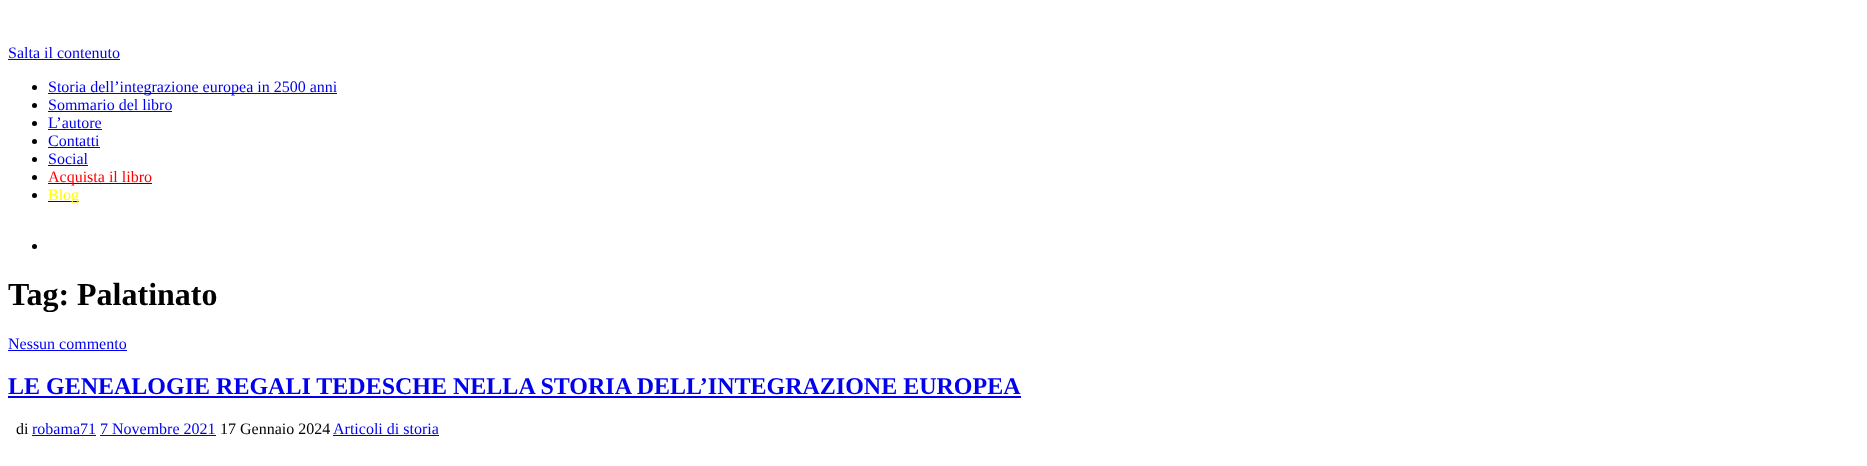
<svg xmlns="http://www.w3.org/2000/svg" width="1867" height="466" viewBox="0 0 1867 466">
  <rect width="100%" height="100%" fill="#fff"/>
  <path d="M8 59h112v1H8z" fill="#00e"/>
  <circle cx="34.5" cy="87.5" r="2.5" fill="#000"/>
  <path d="M48 93h289v1H48z" fill="#00e"/>
  <circle cx="34.5" cy="105.5" r="2.5" fill="#000"/>
  <path d="M48 111h124v1H48z" fill="#00e"/>
  <circle cx="34.5" cy="123.5" r="2.5" fill="#000"/>
  <path d="M48 129h54v1H48z" fill="#00e"/>
  <circle cx="34.5" cy="141.5" r="2.5" fill="#000"/>
  <path d="M48 147h52v1H48z" fill="#00e"/>
  <circle cx="34.5" cy="159.5" r="2.5" fill="#000"/>
  <path d="M48 165h40v1H48z" fill="#00e"/>
  <circle cx="34.5" cy="177.5" r="2.5" fill="#000"/>
  <path d="M48 183h104v1H48z" fill="#00e"/>
  <circle cx="34.5" cy="195.5" r="2.5" fill="#000"/>
  <path d="M48 201h31v1H48z" fill="#00e"/>
  <circle cx="34.5" cy="246.5" r="2.5" fill="#000"/>
  <path d="M8 350h119v1H8z" fill="#00e"/>
  <path d="M8 396h1013v2H8z" fill="#00e"/>
  <path d="M32 435h64v1H32z" fill="#00e"/>
  <path d="M333 435h106v1H333z" fill="#00e"/>
  <path d="M100 435h116v1H100z" fill="#00e"/>
  <g font-family="Liberation Serif" font-size="16" fill="#00e">
    <text x="8" y="58">Salta il contenuto</text>
    <text x="48" y="92">Storia dell’integrazione europea in 2500 anni</text>
    <text x="48" y="110">Sommario del libro</text>
    <text x="48" y="128">L’autore</text>
    <text x="48" y="146">Contatti</text>
    <text x="48" y="164">Social</text>
  </g>
  <text x="48" y="182" font-family="Liberation Serif" font-size="16" fill="#f00">Acquista il libro</text>
  <text x="48" y="200" font-family="Liberation Serif" font-size="16" fill="#ff0">Blog</text>
  <text x="8" y="305" font-family="Liberation Serif" font-size="32" font-weight="bold" fill="#000">Tag: Palatinato</text>
  <text x="8" y="349" font-family="Liberation Serif" font-size="16" fill="#00e">Nessun commento</text>
  <text x="8" y="394" font-family="Liberation Serif" font-size="24" font-weight="bold" fill="#00e">LE GENEALOGIE REGALI TEDESCHE NELLA STORIA DELL’INTEGRAZIONE EUROPEA</text>
  <text x="16" y="434" font-family="Liberation Serif" font-size="16" fill="#000">di</text>
  <text x="32" y="434" font-family="Liberation Serif" font-size="16" fill="#00e">robama71 7 Novembre 2021</text>
  <text x="220" y="434" font-family="Liberation Serif" font-size="16" fill="#000">17 Gennaio 2024</text>
  <text x="333" y="434" font-family="Liberation Serif" font-size="16" fill="#00e">Articoli di storia</text>
</svg>
